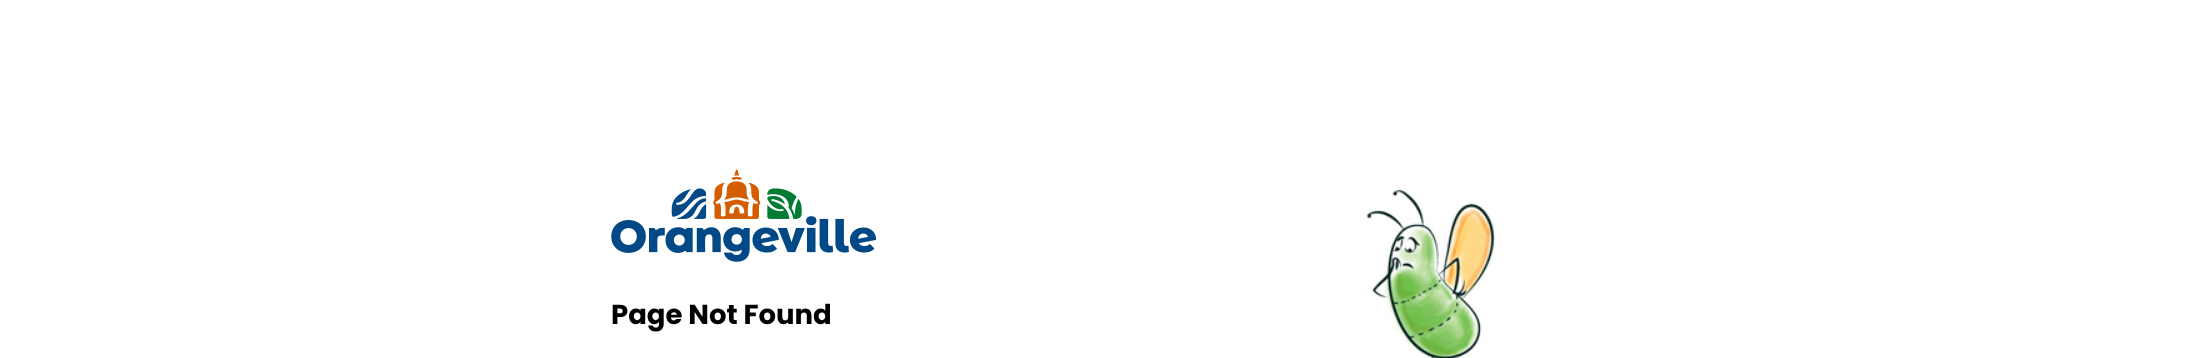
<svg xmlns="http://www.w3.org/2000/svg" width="2185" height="358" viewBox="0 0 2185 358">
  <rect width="100%" height="100%" fill="#fff"/>
  <image x="1366" y="189" width="130" height="169" href="img/1.png"/>
  <image x="611" y="169" width="265" height="93" href="img/2.png"/>
  <text x="611" y="324" font-family="Poppins" font-size="27.5" font-weight="bold" fill="#000">Page Not Found</text>
</svg>
